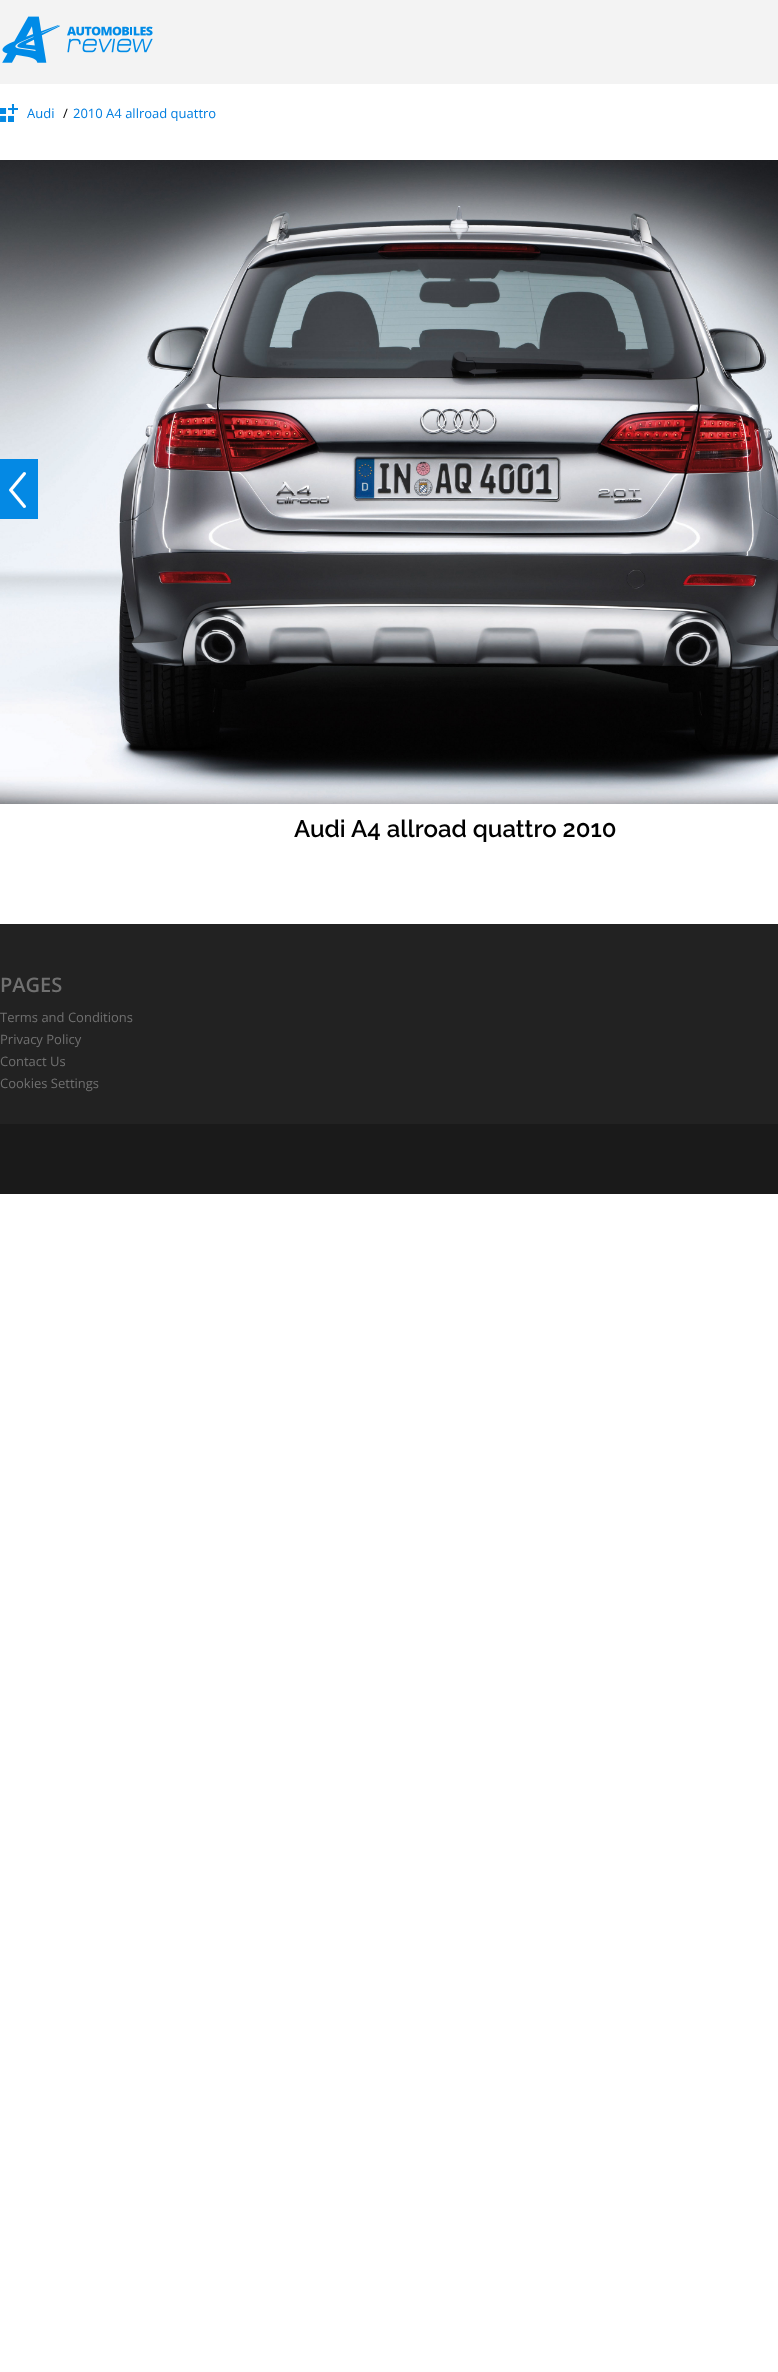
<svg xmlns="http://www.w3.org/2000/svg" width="778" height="2372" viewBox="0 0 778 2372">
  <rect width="100%" height="100%" fill="#fff"/>
  <path d="M0 0h778v84H0z" fill="#f3f3f3"/>
  <image x="2" y="16" width="151" height="47" href="img/1.png"/>
  <image x="0" y="104" width="18" height="18" href="img/2.png"/>
  <image x="0" y="160" width="778" height="644" href="img/4.png"/>
  <path d="M0 459h38v60H0z" fill="#0489e4"/>
  <image x="9" y="472" width="17" height="36" href="img/3.png"/>
  <path d="M0 924h778v200H0z" fill="#222"/>
  <path d="M0 1124h778v70H0z" fill="#1a1a1a"/>
  <text x="27" y="118" font-family="Open Sans" font-size="13" fill="#007ee0">Audi</text>
  <text x="63" y="118" font-family="Open Sans" font-size="13" fill="#000">/</text>
  <text x="73" y="118" font-family="Open Sans" font-size="13" fill="#007ee0">2010 A4 allroad quattro</text>
  <g font-family="Raleway" font-size="24" font-weight="600" fill="#000">
    <text x="294" y="837">Audi</text>
    <text x="351" y="837">A4 allroad quattro 2010</text>
  </g>
  <text x="0" y="992" font-family="Open Sans" font-size="20" font-weight="600" fill="#707070">PAGES</text>
  <g font-family="Open Sans" font-size="13" fill="#707070">
    <text x="0" y="1022">Terms and Conditions</text>
    <text x="0" y="1044">Privacy Policy</text>
    <text x="0" y="1066">Contact Us</text>
    <text x="0" y="1088">Cookies Settings</text>
  </g>
</svg>
